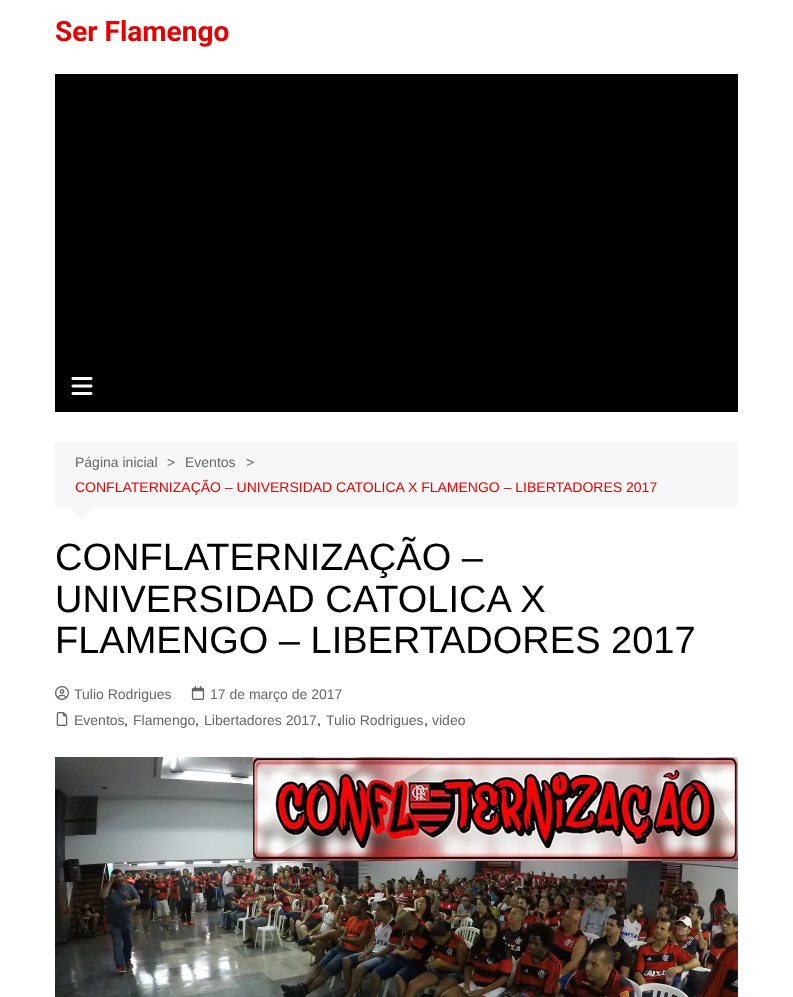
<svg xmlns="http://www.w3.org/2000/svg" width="793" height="997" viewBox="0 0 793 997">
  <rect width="100%" height="100%" fill="#fff"/>
  <path d="M55 74h683v338H55z" fill="#000"/>
  <image x="71" y="377" width="22" height="18" href="img/1.png"/>
  <path d="M55 442h683v65H55z" fill="#f7f7f7"/>
  <path d="M69.5 507H93.5L81.5 520Z" fill="#f7f7f7"/>
  <image x="55" y="686" width="14" height="14" href="img/2.png"/>
  <image x="191" y="686" width="14" height="14" href="img/3.png"/>
  <image x="56" y="712" width="12" height="14" href="img/4.png"/>
  <image x="55" y="757" width="683" height="240" href="img/5.png"/>
  <text x="55" y="41" font-family="Roboto" font-size="28" font-weight="bold" fill="#e80000">Ser Flamengo</text>
  <g font-family="Liberation Sans" font-size="14" fill="#666">
    <text x="75" y="467">Página inicial</text>
    <text x="167" y="467">&gt;</text>
    <text x="185" y="467">Eventos</text>
    <text x="246" y="467">&gt;</text>
  </g>
  <text x="75" y="492" font-family="Liberation Sans" font-size="14" fill="#e80000">CONFLATERNIZAÇÃO – UNIVERSIDAD CATOLICA X FLAMENGO – LIBERTADORES 2017</text>
  <g font-family="Liberation Sans" font-size="38" fill="#010101">
    <text x="55" y="570">CONFLATERNIZAÇÃO –</text>
    <text x="55" y="612">UNIVERSIDAD CATOLICA X</text>
    <text x="55" y="653">FLAMENGO – LIBERTADORES 2017</text>
  </g>
  <g font-family="Liberation Sans" font-size="14" fill="#666">
    <text x="74" y="699">Tulio Rodrigues</text>
    <text x="210" y="699">17 de março de 2017</text>
    <text x="74" y="725">Eventos</text>
  </g>
  <text x="124" y="725" font-family="Liberation Sans" font-size="14" fill="#010101">,</text>
  <text x="133" y="725" font-family="Liberation Sans" font-size="14" fill="#666">Flamengo</text>
  <text x="195" y="725" font-family="Liberation Sans" font-size="14" fill="#010101">,</text>
  <text x="204" y="725" font-family="Liberation Sans" font-size="14" fill="#666">Libertadores 2017</text>
  <text x="317" y="725" font-family="Liberation Sans" font-size="14" fill="#010101">,</text>
  <text x="326" y="725" font-family="Liberation Sans" font-size="14" fill="#666">Tulio Rodrigues</text>
  <text x="424" y="725" font-family="Liberation Sans" font-size="14" fill="#010101">,</text>
  <text x="432" y="725" font-family="Liberation Sans" font-size="14" fill="#666">video</text>
</svg>
